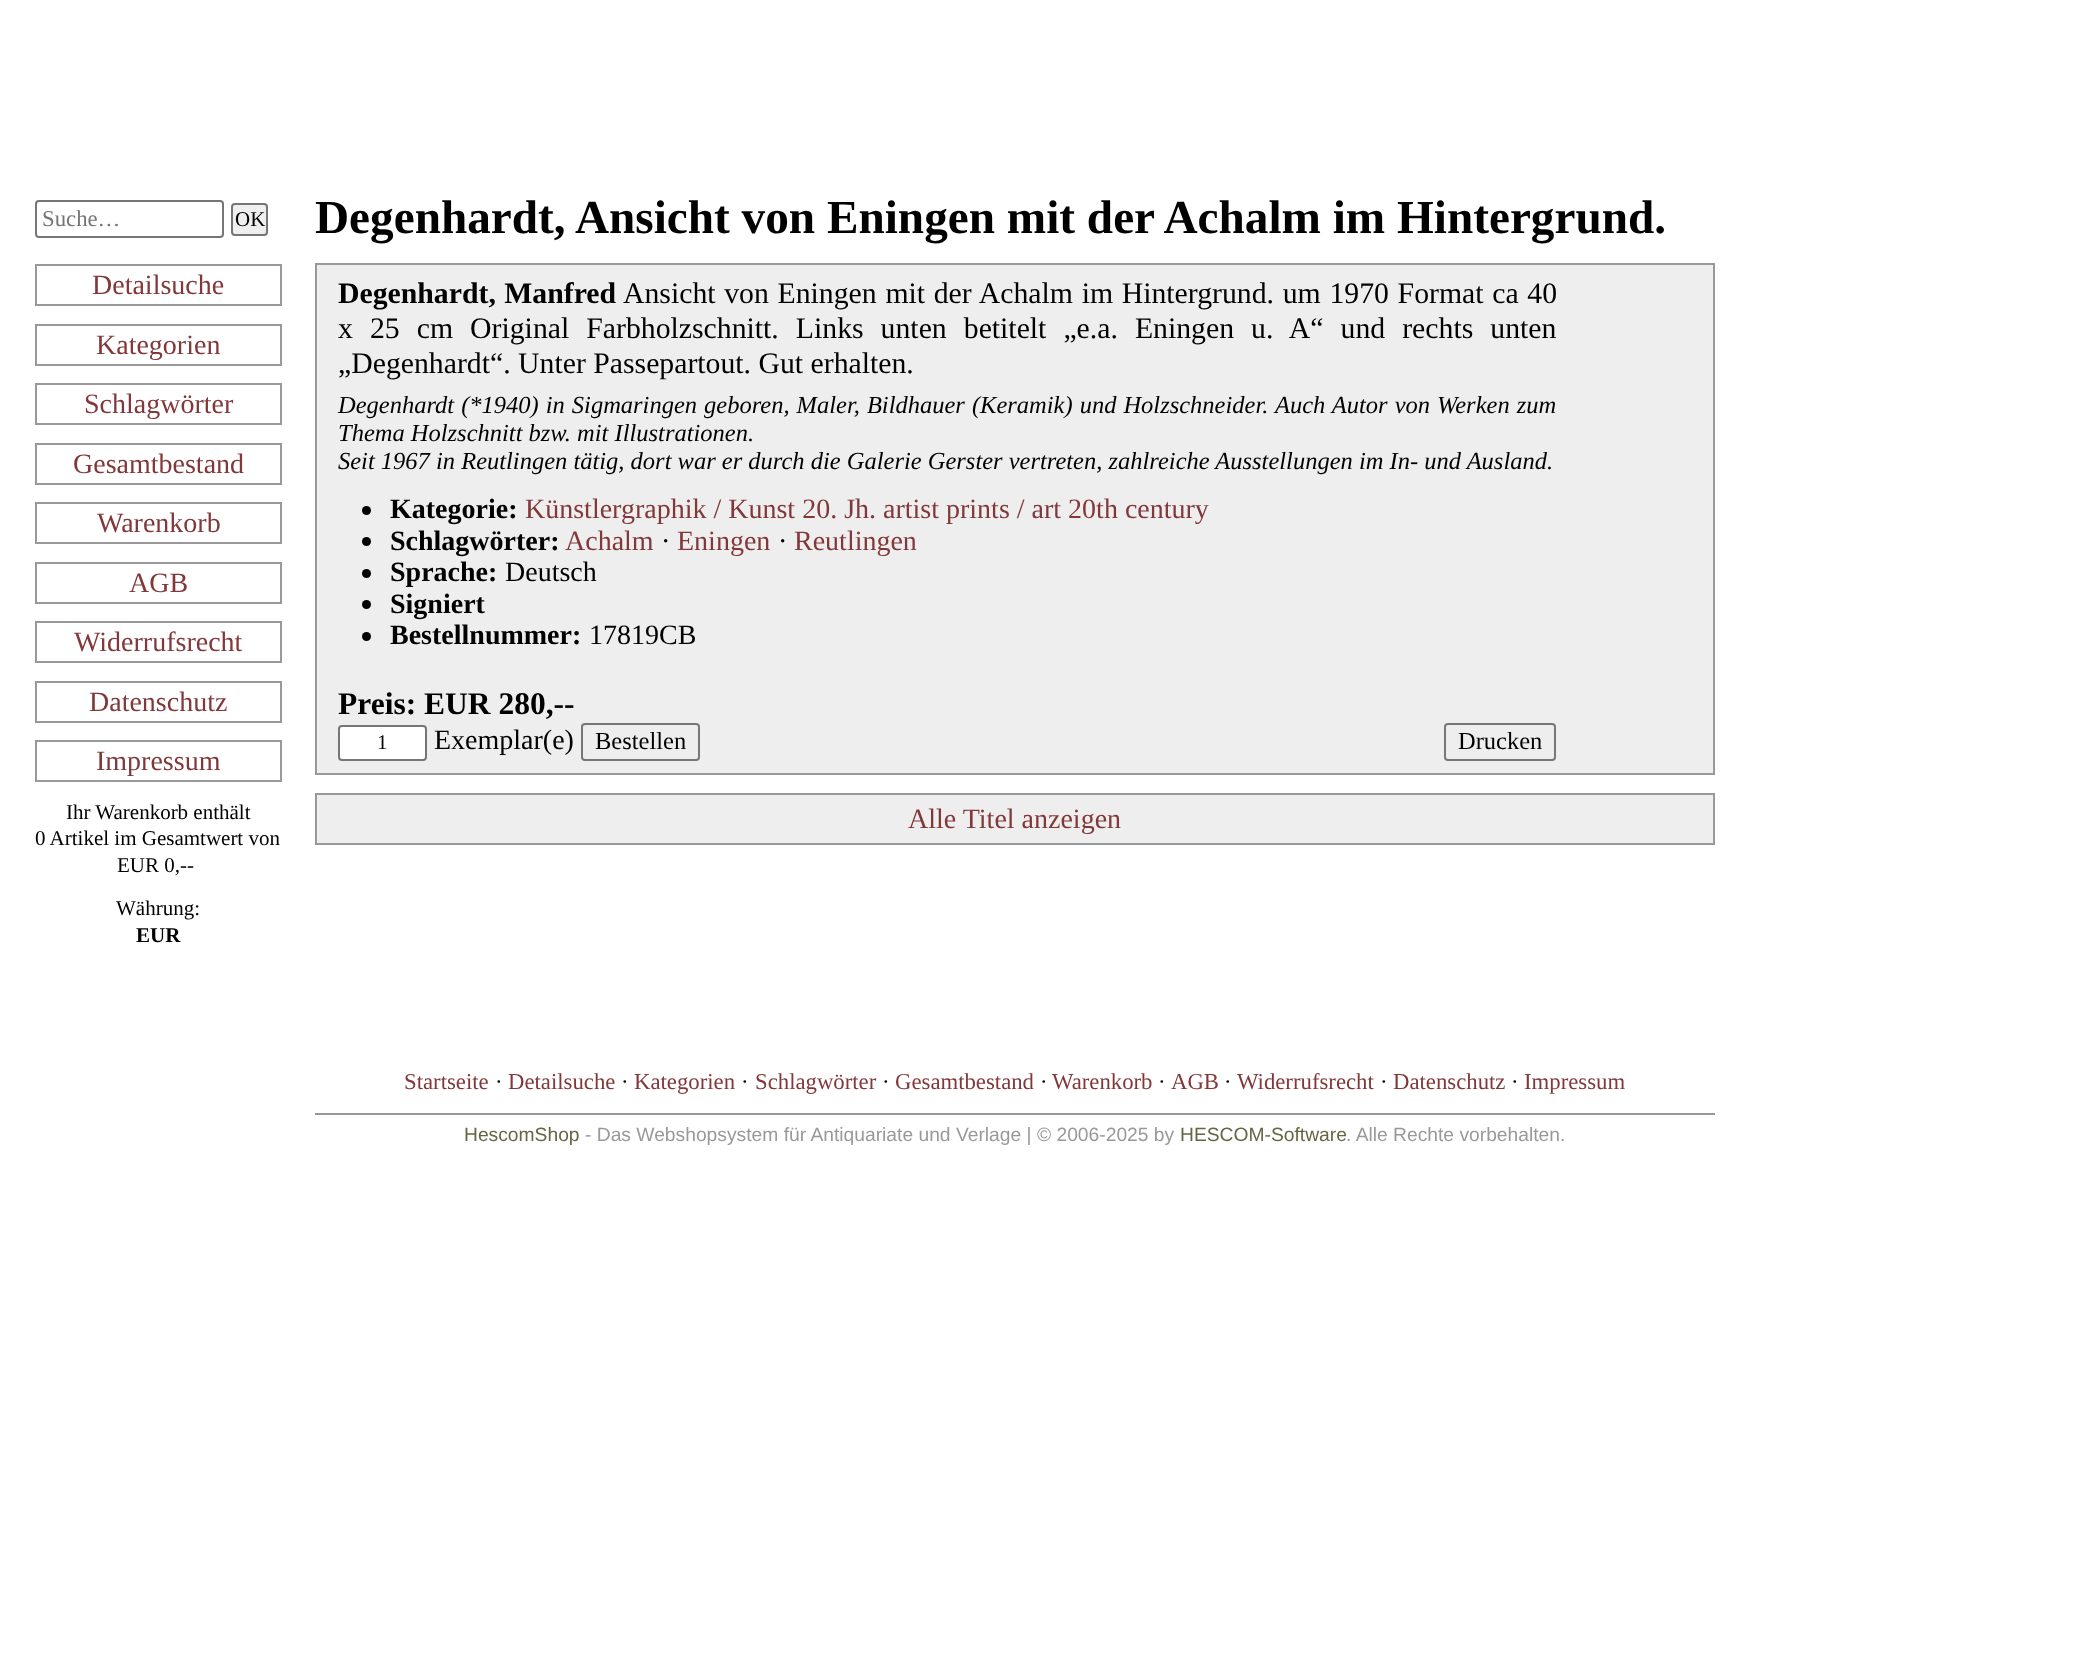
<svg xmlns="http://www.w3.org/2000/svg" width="2079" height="1659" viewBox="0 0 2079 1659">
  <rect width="100%" height="100%" fill="#fff"/>
  <rect x="36" y="201" width="187" height="36" rx="3" fill="none" stroke="#767676" stroke-width="2"/>
  <rect x="232" y="204" width="35" height="31" rx="3" fill="#efefef" stroke="#767676" stroke-width="2"/>
  <path d="M36 265h245v40H36z" fill="none" stroke="#999" stroke-width="2"/>
  <path d="M36 325h245v40H36z" fill="none" stroke="#999" stroke-width="2"/>
  <path d="M36 384h245v40H36z" fill="none" stroke="#999" stroke-width="2"/>
  <path d="M36 444h245v40H36z" fill="none" stroke="#999" stroke-width="2"/>
  <path d="M36 503h245v40H36z" fill="none" stroke="#999" stroke-width="2"/>
  <path d="M36 563h245v40H36z" fill="none" stroke="#999" stroke-width="2"/>
  <path d="M36 622h245v40H36z" fill="none" stroke="#999" stroke-width="2"/>
  <path d="M36 682h245v40H36z" fill="none" stroke="#999" stroke-width="2"/>
  <path d="M36 741h245v40H36z" fill="none" stroke="#999" stroke-width="2"/>
  <path d="M316 264h1398v510H316z" fill="#eee" stroke="#999" stroke-width="2"/>
  <circle cx="366.5" cy="510.5" r="4.5" fill="#000"/>
  <circle cx="366.5" cy="541.5" r="4.5" fill="#000"/>
  <circle cx="366.5" cy="573.5" r="4.5" fill="#000"/>
  <circle cx="366.5" cy="604.5" r="4.5" fill="#000"/>
  <circle cx="366.5" cy="636.5" r="4.5" fill="#000"/>
  <rect x="339" y="726" width="87" height="34" rx="3" fill="#fff" stroke="#767676" stroke-width="2"/>
  <rect x="582" y="724" width="117" height="36" rx="3" fill="none" stroke="#767676" stroke-width="2"/>
  <rect x="1445" y="724" width="110" height="36" rx="3" fill="none" stroke="#767676" stroke-width="2"/>
  <path d="M316 794h1398v50H316z" fill="#eee" stroke="#999" stroke-width="2"/>
  <path d="M315 1113h1400v2H315z" fill="#999"/>
  <text x="42" y="226" font-family="Liberation Serif" font-size="22.75" fill="#757575">Suche…</text>
  <text x="235" y="226" font-family="Liberation Serif" font-size="21" fill="#000">OK</text>
  <g font-family="Liberation Serif" font-size="28" fill="#82383a">
    <text x="92" y="294">Detailsuche</text>
    <text x="96" y="354">Kategorien</text>
    <text x="84" y="413">Schlagwörter</text>
    <text x="73" y="473">Gesamtbestand</text>
    <text x="97" y="532">Warenkorb</text>
    <text x="129" y="592">AGB</text>
    <text x="74" y="651">Widerrufsrecht</text>
    <text x="89" y="711">Datenschutz</text>
    <text x="96" y="770">Impressum</text>
  </g>
  <g font-family="Liberation Serif" font-size="21" fill="#000">
    <text x="66" y="819">Ihr Warenkorb enthält</text>
    <text x="35" y="845">0 Artikel im Gesamtwert von</text>
    <text x="117" y="872">EUR 0,--</text>
    <text x="116" y="915">Währung:</text>
  </g>
  <text x="136" y="942" font-family="Liberation Serif" font-size="21" font-weight="bold" fill="#000">EUR</text>
  <text x="315" y="233" font-family="Liberation Serif" font-size="47.25" font-weight="bold" fill="#000">Degenhardt, Ansicht von Eningen mit der Achalm im Hintergrund.</text>
  <text x="338" y="303" word-spacing="1" font-family="Liberation Serif" font-size="29.75" font-weight="bold" fill="#000">Degenhardt, Manfred</text>
  <g font-family="Liberation Serif" font-size="29.75" fill="#000">
    <text x="623" y="303" word-spacing="1.25">Ansicht von Eningen mit der Achalm im Hintergrund. um 1970 Format ca 40</text>
    <text x="338" y="338" word-spacing="9.6">x 25 cm Original Farbholzschnitt. Links unten betitelt „e.a. Eningen u. A“ und rechts unten</text>
    <text x="338" y="373">„Degenhardt“. Unter Passepartout. Gut erhalten.</text>
  </g>
  <g font-family="Liberation Serif" font-size="24.5" font-style="italic" fill="#000">
    <text x="338" y="413" word-spacing="0.9">Degenhardt (*1940) in Sigmaringen geboren, Maler, Bildhauer (Keramik) und Holzschneider. Auch Autor von Werken zum</text>
    <text x="338" y="441">Thema Holzschnitt bzw. mit Illustrationen.</text>
    <text x="338" y="469">Seit 1967 in Reutlingen tätig, dort war er durch die Galerie Gerster vertreten, zahlreiche Ausstellungen im In- und Ausland.</text>
  </g>
  <text x="390" y="518" font-family="Liberation Serif" font-size="28" font-weight="bold" fill="#000">Kategorie:</text>
  <text x="525" y="518" font-family="Liberation Serif" font-size="28" fill="#82383a">Künstlergraphik / Kunst 20. Jh. artist prints / art 20th century</text>
  <text x="390" y="550" font-family="Liberation Serif" font-size="28" font-weight="bold" fill="#000">Schlagwörter:</text>
  <text x="565" y="550" font-family="Liberation Serif" font-size="28" fill="#82383a">Achalm</text>
  <text x="661" y="550" font-family="Liberation Serif" font-size="28" fill="#000">·</text>
  <text x="677" y="550" font-family="Liberation Serif" font-size="28" fill="#82383a">Eningen</text>
  <text x="778" y="550" font-family="Liberation Serif" font-size="28" fill="#000">·</text>
  <text x="794" y="550" font-family="Liberation Serif" font-size="28" fill="#82383a">Reutlingen</text>
  <text x="390" y="581" font-family="Liberation Serif" font-size="28" font-weight="bold" fill="#000">Sprache:</text>
  <text x="505" y="581" font-family="Liberation Serif" font-size="28" fill="#000">Deutsch</text>
  <g font-family="Liberation Serif" font-size="28" font-weight="bold" fill="#000">
    <text x="390" y="613">Signiert</text>
    <text x="390" y="644">Bestellnummer:</text>
  </g>
  <text x="589" y="644" font-family="Liberation Serif" font-size="28" fill="#000">17819CB</text>
  <text x="338" y="714" font-family="Liberation Serif" font-size="31.5" font-weight="bold" fill="#000">Preis: EUR 280,--</text>
  <text x="377" y="749" font-family="Liberation Serif" font-size="21" fill="#000">1</text>
  <text x="434" y="749" font-family="Liberation Serif" font-size="28" fill="#000">Exemplar(e)</text>
  <g font-family="Liberation Serif" font-size="24.5" fill="#000">
    <text x="595" y="749">Bestellen</text>
    <text x="1458" y="749">Drucken</text>
  </g>
  <text x="908" y="828" font-family="Liberation Serif" font-size="28" fill="#82383a">Alle Titel anzeigen</text>
  <text x="404" y="1089" font-family="Liberation Serif" font-size="22.75" fill="#82383a">Startseite</text>
  <text x="495" y="1089" font-family="Liberation Serif" font-size="22.75" fill="#000">·</text>
  <text x="508" y="1089" font-family="Liberation Serif" font-size="22.75" fill="#82383a">Detailsuche</text>
  <text x="621" y="1089" font-family="Liberation Serif" font-size="22.75" fill="#000">·</text>
  <text x="634" y="1089" font-family="Liberation Serif" font-size="22.75" fill="#82383a">Kategorien</text>
  <text x="741" y="1089" font-family="Liberation Serif" font-size="22.75" fill="#000">·</text>
  <text x="755" y="1089" font-family="Liberation Serif" font-size="22.75" fill="#82383a">Schlagwörter</text>
  <text x="882" y="1089" font-family="Liberation Serif" font-size="22.75" fill="#000">·</text>
  <text x="895" y="1089" font-family="Liberation Serif" font-size="22.75" fill="#82383a">Gesamtbestand</text>
  <text x="1040" y="1089" font-family="Liberation Serif" font-size="22.75" fill="#000">·</text>
  <text x="1052" y="1089" font-family="Liberation Serif" font-size="22.75" fill="#82383a">Warenkorb</text>
  <text x="1158" y="1089" font-family="Liberation Serif" font-size="22.75" fill="#000">·</text>
  <text x="1171" y="1089" font-family="Liberation Serif" font-size="22.75" fill="#82383a">AGB</text>
  <text x="1224" y="1089" font-family="Liberation Serif" font-size="22.75" fill="#000">·</text>
  <text x="1237" y="1089" font-family="Liberation Serif" font-size="22.75" fill="#82383a">Widerrufsrecht</text>
  <text x="1380" y="1089" font-family="Liberation Serif" font-size="22.75" fill="#000">·</text>
  <text x="1393" y="1089" font-family="Liberation Serif" font-size="22.75" fill="#82383a">Datenschutz</text>
  <text x="1511" y="1089" font-family="Liberation Serif" font-size="22.75" fill="#000">·</text>
  <text x="1524" y="1089" font-family="Liberation Serif" font-size="22.75" fill="#82383a">Impressum</text>
  <text x="464" y="1141" font-family="Liberation Sans" font-size="19.25" fill="#664">HescomShop</text>
  <text x="585" y="1141" font-family="Liberation Sans" font-size="19.25" fill="#999">- Das Webshopsystem für Antiquariate und Verlage | © 2006-2025 by</text>
  <text x="1180" y="1141" font-family="Liberation Sans" font-size="19.25" fill="#664">HESCOM-Software</text>
  <text x="1346" y="1141" font-family="Liberation Sans" font-size="19.25" fill="#999">. Alle Rechte vorbehalten.</text>
</svg>
